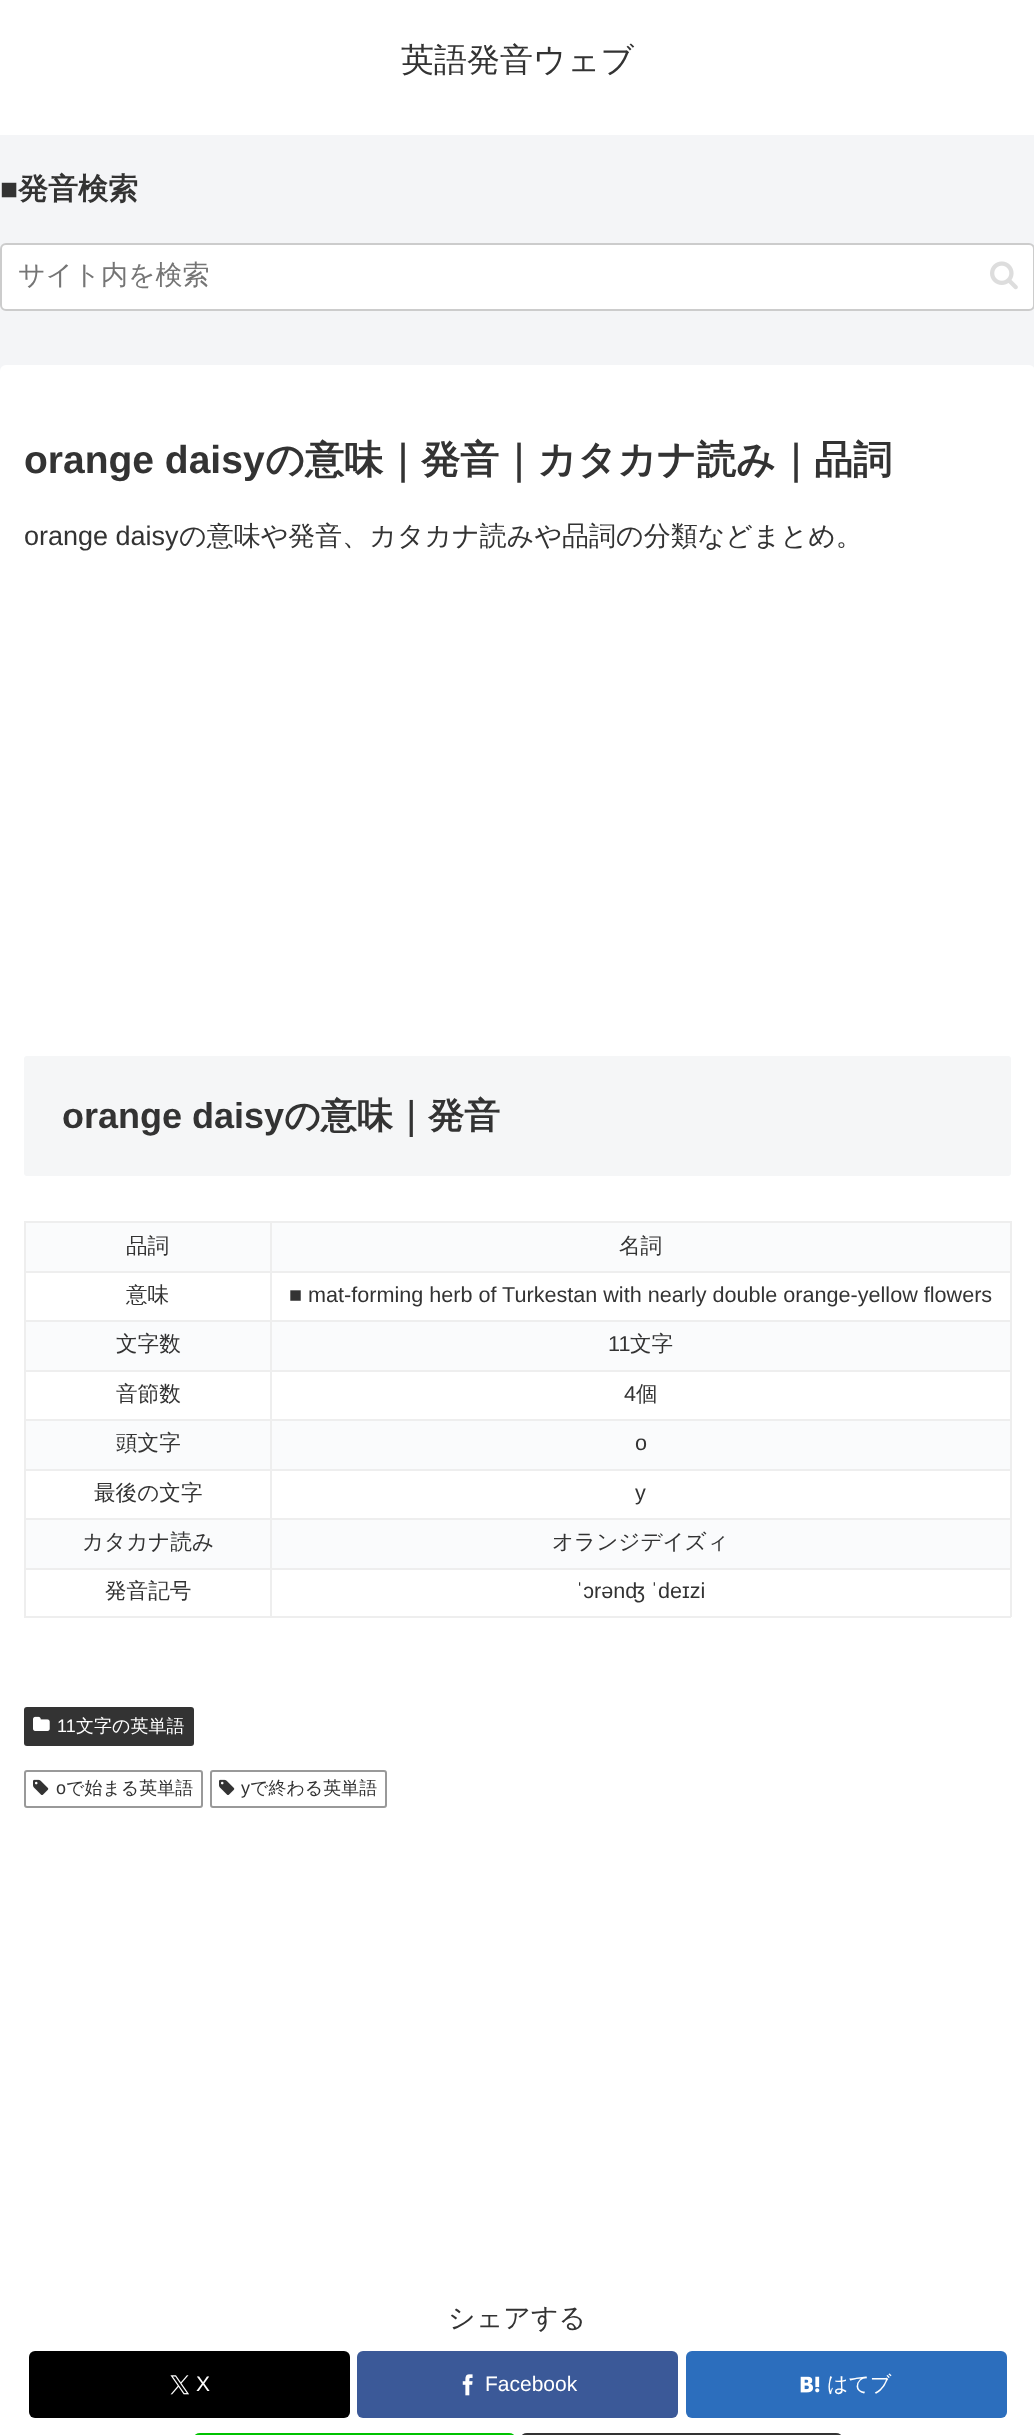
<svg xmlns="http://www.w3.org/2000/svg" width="1034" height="2435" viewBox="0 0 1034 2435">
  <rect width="100%" height="100%" fill="#f4f5f7"/>
  <path d="M0 0h1034v135H0z" fill="#fff"/>
  <rect x="1" y="244" width="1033" height="66" rx="5" fill="#fff" stroke="#ccc" stroke-width="2"/>
  <image x="990" y="261" width="28" height="29" href="img/1.png"/>
  <rect y="365" width="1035" height="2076" rx="6" fill="#fff"/>
  <rect x="24" y="1056" width="987" height="120" rx="3" fill="#f5f6f7"/>
  <path d="M26 1223h984v48H26z" fill="#fafbfc"/>
  <path d="M270 1221h741v2H270z" fill="#eee"/>
  <path d="M270 1271h741v2H270z" fill="#eee"/>
  <path d="M270 1320h741v2H270z" fill="#eee"/>
  <path d="M26 1322h984v48H26z" fill="#fafbfc"/>
  <path d="M270 1370h741v2H270z" fill="#eee"/>
  <path d="M270 1419h741v2H270z" fill="#eee"/>
  <path d="M26 1421h984v48H26z" fill="#fafbfc"/>
  <path d="M270 1469h741v2H270z" fill="#eee"/>
  <path d="M270 1518h741v2H270z" fill="#eee"/>
  <path d="M26 1520h984v48H26z" fill="#fafbfc"/>
  <path d="M270 1568h741v2H270z" fill="#eee"/>
  <path d="M1010 1568h2v49H1010z" fill="#eee"/>
  <path d="M270 1616h741v2H270z" fill="#eee"/>
  <path d="M270 1568h2v49H270z" fill="#eee"/>
  <path d="M24 1568h248v2H24z" fill="#eee"/>
  <path d="M270 1518h2v51H270z" fill="#eee"/>
  <path d="M24 1518h248v2H24z" fill="#eee"/>
  <path d="M270 1469h2v51H270z" fill="#eee"/>
  <path d="M24 1469h248v2H24z" fill="#eee"/>
  <path d="M270 1419h2v51H270z" fill="#eee"/>
  <path d="M24 1419h248v2H24z" fill="#eee"/>
  <path d="M270 1370h2v51H270z" fill="#eee"/>
  <path d="M24 1370h248v2H24z" fill="#eee"/>
  <path d="M270 1320h2v51H270z" fill="#eee"/>
  <path d="M24 1320h248v2H24z" fill="#eee"/>
  <path d="M270 1271h2v51H270z" fill="#eee"/>
  <path d="M24 1271h248v2H24z" fill="#eee"/>
  <path d="M270 1221h2v51H270z" fill="#eee"/>
  <path d="M24 1221h248v2H24z" fill="#eee"/>
  <path d="M24 1616h248v2H24z" fill="#eee"/>
  <path d="M24 1568h2v49H24z" fill="#eee"/>
  <path d="M24 1518h2v51H24z" fill="#eee"/>
  <path d="M24 1469h2v51H24z" fill="#eee"/>
  <path d="M24 1419h2v51H24z" fill="#eee"/>
  <path d="M24 1370h2v51H24z" fill="#eee"/>
  <path d="M24 1320h2v51H24z" fill="#eee"/>
  <path d="M24 1271h2v51H24z" fill="#eee"/>
  <path d="M24 1221h2v51H24z" fill="#eee"/>
  <path d="M1010 1518h2v51H1010z" fill="#eee"/>
  <path d="M1010 1469h2v51H1010z" fill="#eee"/>
  <path d="M1010 1419h2v51H1010z" fill="#eee"/>
  <path d="M1010 1370h2v51H1010z" fill="#eee"/>
  <path d="M1010 1320h2v51H1010z" fill="#eee"/>
  <path d="M1010 1271h2v51H1010z" fill="#eee"/>
  <path d="M1010 1221h2v51H1010z" fill="#eee"/>
  <rect x="24" y="1707" width="170" height="39" rx="3" fill="#333"/>
  <image x="33" y="1716" width="17" height="15" href="img/2.png"/>
  <rect x="25" y="1771" width="177" height="36" rx="2" fill="none" stroke="#999" stroke-width="2"/>
  <image x="33" y="1779" width="16" height="16" href="img/3.png"/>
  <rect x="211" y="1771" width="175" height="36" rx="2" fill="none" stroke="#999" stroke-width="2"/>
  <image x="219" y="1779" width="16" height="16" href="img/3.png"/>
  <rect x="29" y="2351" width="321" height="67" rx="6" fill="#000"/>
  <image x="170" y="2375" width="19" height="20" href="img/4.png"/>
  <rect x="357" y="2351" width="321" height="67" rx="6" fill="#3b5998"/>
  <image x="462" y="2374" width="11" height="22" href="img/5.png"/>
  <rect x="686" y="2351" width="321" height="67" rx="6" fill="#2c6ebd"/>
  <image x="800" y="2376" width="20" height="17" href="img/6.png"/>
  <rect x="194" y="2433" width="321" height="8" rx="6" fill="#00c300"/>
  <rect x="521" y="2433" width="321" height="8" rx="6" fill="#333"/>
  <text x="401" y="71" font-family="WenQuanYi Zen Hei" font-size="33" font-weight="500" fill="#333">英語発音ウェブ</text>
  <text x="0" y="199" font-family="Liberation Sans" font-size="30" font-weight="bold" fill="#333">■</text>
  <text x="18" y="199" font-family="WenQuanYi Zen Hei" font-size="30" font-weight="bold" fill="#333">発音検索</text>
  <text x="18" y="284" font-family="WenQuanYi Zen Hei" font-size="27" font-weight="500" fill="#757575">サイト内を検索</text>
  <text x="24" y="473" font-family="Liberation Sans" font-size="39" font-weight="bold" fill="#333">orange daisy</text>
  <text x="265" y="473" font-family="WenQuanYi Zen Hei" font-size="39" font-weight="bold" fill="#333">の意味｜発音｜カタカナ読み｜品詞</text>
  <text x="24" y="545" font-family="Liberation Sans" font-size="27" fill="#333">orange daisy</text>
  <text x="179" y="545" font-family="WenQuanYi Zen Hei" font-size="27" font-weight="500" fill="#333">の意味や発音、カタカナ読みや品詞の分類などまとめ。</text>
  <text x="62" y="1128" font-family="Liberation Sans" font-size="36" font-weight="bold" fill="#333">orange daisy</text>
  <text x="284" y="1128" font-family="WenQuanYi Zen Hei" font-size="36" font-weight="bold" fill="#333">の意味｜発音</text>
  <g font-family="WenQuanYi Zen Hei" font-size="21.6" font-weight="500" fill="#333">
    <text x="126" y="1253">品詞</text>
    <text x="619" y="1253">名詞</text>
    <text x="126" y="1302">意味</text>
  </g>
  <text x="289" y="1302" font-family="Liberation Sans" font-size="21.6" fill="#333">■ mat-forming herb of Turkestan with nearly double orange-yellow flowers</text>
  <text x="116" y="1351" font-family="WenQuanYi Zen Hei" font-size="21.6" font-weight="500" fill="#333">文字数</text>
  <text x="608" y="1351" font-family="Liberation Sans" font-size="21.6" fill="#333">11</text>
  <g font-family="WenQuanYi Zen Hei" font-size="21.6" font-weight="500" fill="#333">
    <text x="630" y="1351">文字</text>
    <text x="116" y="1401">音節数</text>
  </g>
  <text x="624" y="1401" font-family="Liberation Sans" font-size="21.6" fill="#333">4</text>
  <g font-family="WenQuanYi Zen Hei" font-size="21.6" font-weight="500" fill="#333">
    <text x="636" y="1401">個</text>
    <text x="116" y="1450">頭文字</text>
  </g>
  <text x="635" y="1450" font-family="Liberation Sans" font-size="21.6" fill="#333">o</text>
  <text x="94" y="1500" font-family="WenQuanYi Zen Hei" font-size="21.6" font-weight="500" fill="#333">最後の文字</text>
  <text x="635" y="1500" font-family="Liberation Sans" font-size="21.6" fill="#333">y</text>
  <g font-family="WenQuanYi Zen Hei" font-size="21.6" font-weight="500" fill="#333">
    <text x="82" y="1549">カタカナ読み</text>
    <text x="552" y="1549">オランジデイズィ</text>
    <text x="105" y="1598">発音記号</text>
  </g>
  <text x="576" y="1598" font-family="Liberation Sans" font-size="21.6" fill="#333">ˈɔrənʤ ˈdeɪzi</text>
  <text x="57" y="1732" font-family="Liberation Sans" font-size="18" fill="#fff">11</text>
  <text x="76" y="1732" font-family="WenQuanYi Zen Hei" font-size="18" font-weight="500" fill="#fff">文字の英単語</text>
  <text x="56" y="1794" font-family="Liberation Sans" font-size="18" fill="#333">o</text>
  <text x="66" y="1794" font-family="WenQuanYi Zen Hei" font-size="18" font-weight="500" fill="#333">で始まる英単語</text>
  <text x="241" y="1794" font-family="Liberation Sans" font-size="18" fill="#333">y</text>
  <text x="250" y="1794" font-family="WenQuanYi Zen Hei" font-size="18" font-weight="500" fill="#333">で終わる英単語</text>
  <text x="448" y="2327" font-family="WenQuanYi Zen Hei" font-size="27" font-weight="500" fill="#333">シェアする</text>
  <g font-family="Liberation Sans" font-size="21" fill="#fff">
    <text x="196" y="2391">X</text>
    <text x="485" y="2391">Facebook</text>
  </g>
  <text x="827" y="2391" font-family="WenQuanYi Zen Hei" font-size="21" font-weight="500" fill="#fff">はてブ</text>
</svg>
